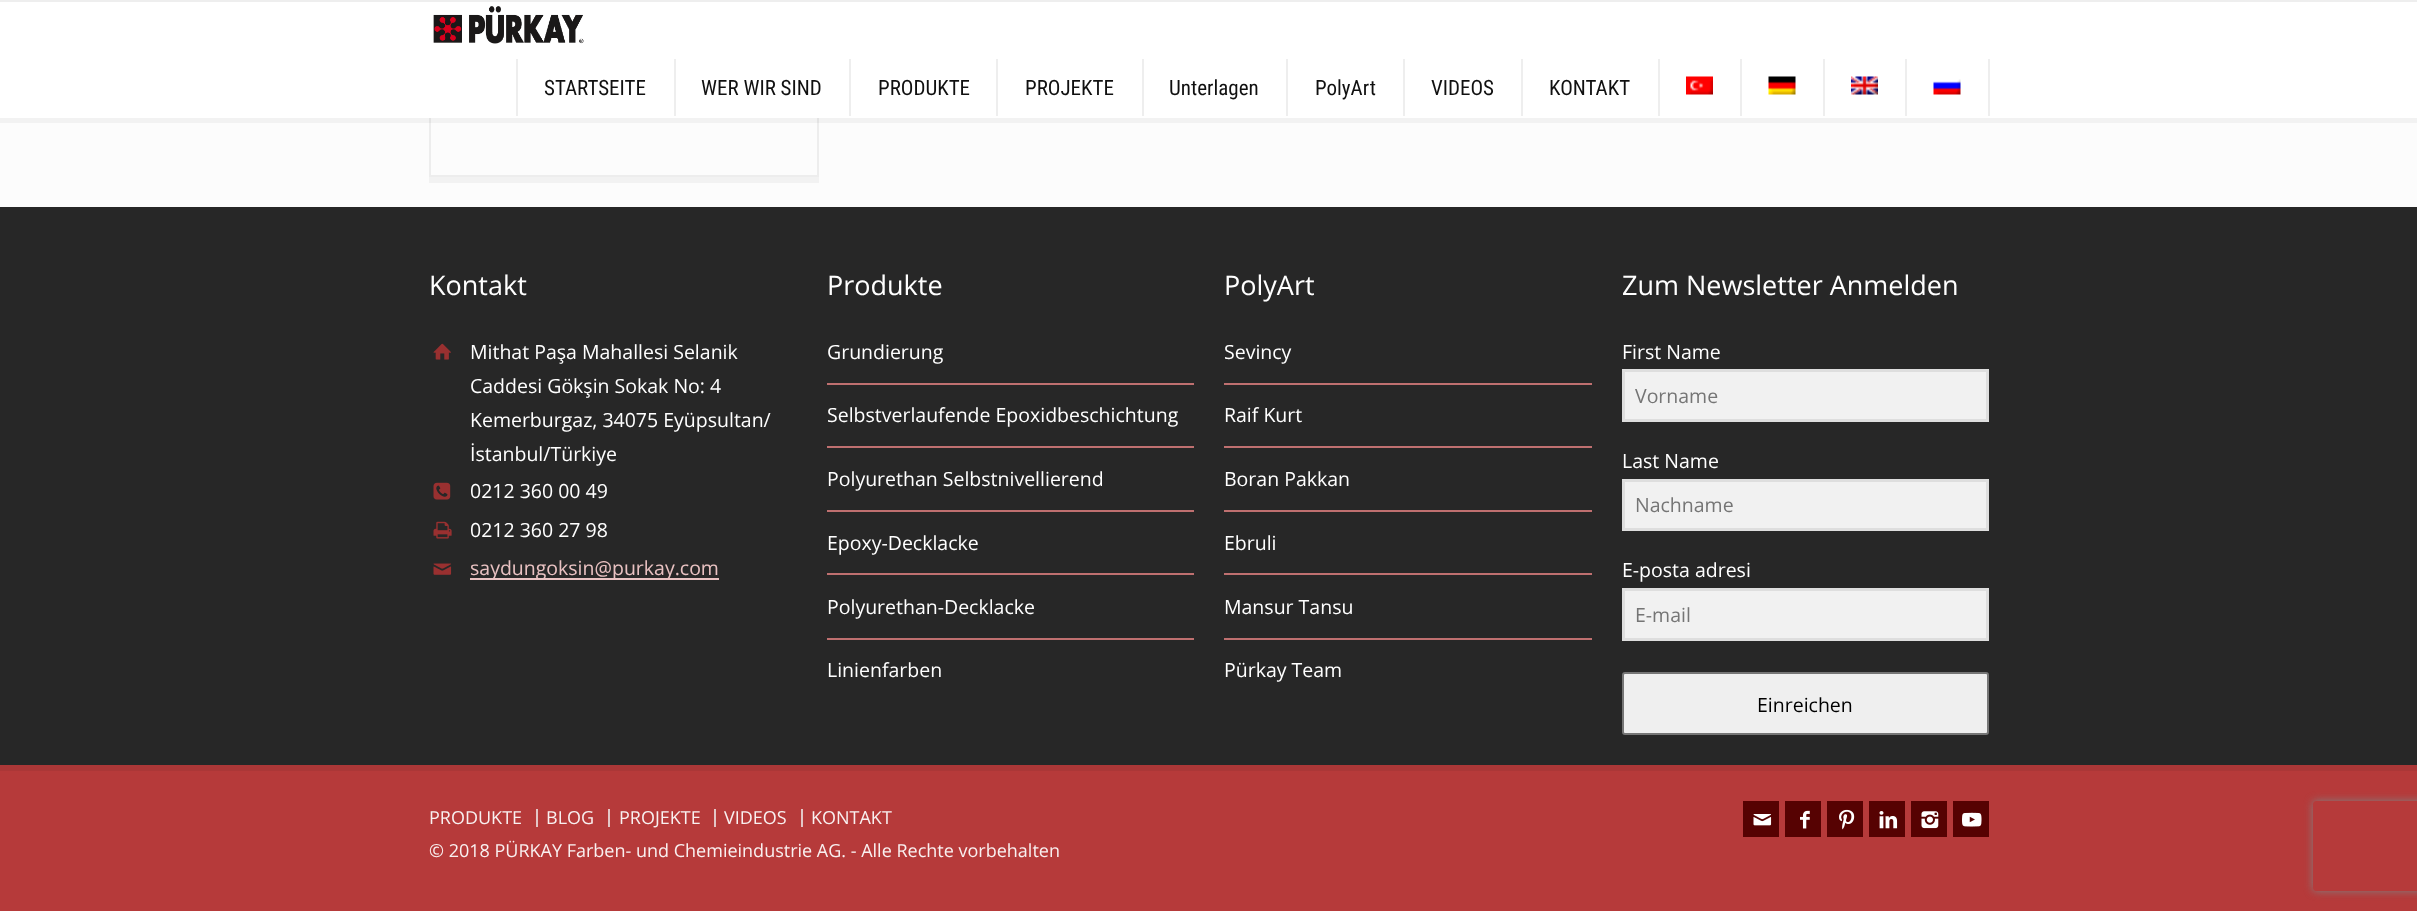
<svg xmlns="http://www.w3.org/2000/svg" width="2417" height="911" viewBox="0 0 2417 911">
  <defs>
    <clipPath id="clip1"><path d="M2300 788H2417V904H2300ZM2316 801H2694C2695.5 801 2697 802.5 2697 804V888C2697 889.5 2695.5 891 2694 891H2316C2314.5 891 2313 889.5 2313 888V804C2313 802.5 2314.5 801 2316 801Z" clip-rule="evenodd"/></clipPath>
  </defs>
  <rect width="100%" height="100%" fill="#b63a3a"/>
  <path d="M0 118h2417v89H0z" fill="#fcfcfc"/>
  <path d="M430 -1h388v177H430z" fill="none" stroke="#ededed" stroke-width="2"/>
  <path d="M0 118h2417v5H0z" fill="#0000000a"/>
  <path d="M0 2h2417v116H0z" fill="#fff"/>
  <path d="M0 0h2417v2H0z" fill="#eee"/>
  <image x="433" y="6" width="151" height="38" href="img/1.png"/>
  <path d="M674 59h2v57H674z" fill="#eee"/>
  <path d="M516 59h2v57H516z" fill="#eee"/>
  <path d="M849 59h2v57H849z" fill="#eee"/>
  <path d="M996 59h2v57H996z" fill="#eee"/>
  <path d="M1142 59h2v57H1142z" fill="#eee"/>
  <path d="M1286 59h2v57H1286z" fill="#eee"/>
  <path d="M1403 59h2v57H1403z" fill="#eee"/>
  <path d="M1521 59h2v57H1521z" fill="#eee"/>
  <path d="M1658 59h2v57H1658z" fill="#eee"/>
  <path d="M1740 59h2v57H1740z" fill="#eee"/>
  <image x="1686" y="76" width="27" height="19" href="img/2.png"/>
  <path d="M1823 59h2v57H1823z" fill="#eee"/>
  <image x="1768" y="76" width="28" height="19" href="img/3.png"/>
  <path d="M1905 59h2v57H1905z" fill="#eee"/>
  <image x="1851" y="76" width="27" height="19" href="img/4.png"/>
  <path d="M1988 59h2v57H1988z" fill="#eee"/>
  <image x="1933" y="79" width="28" height="16" href="img/5.png"/>
  <path d="M429 177h390v6H429z" fill="#f2f2f2"/>
  <path d="M0 207h2417v558H0z" fill="#272727"/>
  <image x="433" y="343" width="18" height="17" href="img/6.png"/>
  <image x="433" y="482" width="18" height="18" href="img/7.png"/>
  <image x="433" y="521" width="19" height="18" href="img/8.png"/>
  <image x="433" y="563" width="19" height="12" href="img/9.png"/>
  <path d="M470 578h249v2H470z" fill="#e9c2c2"/>
  <path d="M827 383h367v2H827z" fill="#bf7070"/>
  <path d="M827 446h367v2H827z" fill="#bf7070"/>
  <path d="M827 510h367v2H827z" fill="#bf7070"/>
  <path d="M827 573h367v2H827z" fill="#bf7070"/>
  <path d="M827 638h367v2H827z" fill="#bf7070"/>
  <path d="M1224 383h368v2H1224z" fill="#bf7070"/>
  <path d="M1224 446h368v2H1224z" fill="#bf7070"/>
  <path d="M1224 510h368v2H1224z" fill="#bf7070"/>
  <path d="M1224 573h368v2H1224z" fill="#bf7070"/>
  <path d="M1224 638h368v2H1224z" fill="#bf7070"/>
  <path d="M1623.5 370.5h364v50H1623.5z" fill="#f1f1f1" stroke="#dedede" stroke-width="3"/>
  <path d="M1623.5 480.5h364v49H1623.5z" fill="#f1f1f1" stroke="#dedede" stroke-width="3"/>
  <path d="M1623.5 589.5h364v50H1623.5z" fill="#f1f1f1" stroke="#dedede" stroke-width="3"/>
  <rect x="1623" y="673" width="365" height="61" rx="2" fill="#efefef" stroke="#767676" stroke-width="2"/>
  <path d="M0 765h2417v6H0z" fill="#ab3737"/>
  <path d="M536 809h2v18H536z" fill="#e3c6c6"/>
  <path d="M608 809h2v18H608z" fill="#e3c6c6"/>
  <path d="M714 809h2v18H714z" fill="#e3c6c6"/>
  <path d="M801 809h2v18H801z" fill="#e3c6c6"/>
  <path d="M1743 801h36v36H1743z" fill="#560202"/>
  <image x="1753" y="814" width="19" height="12" href="img/10.png"/>
  <path d="M1785 801h36v36H1785z" fill="#560202"/>
  <image x="1800" y="810" width="10" height="19" href="img/11.png"/>
  <path d="M1827 801h36v36H1827z" fill="#560202"/>
  <image x="1839" y="809" width="16" height="21" href="img/12.png"/>
  <path d="M1869 801h36v36H1869z" fill="#560202"/>
  <image x="1879" y="811" width="19" height="18" href="img/13.png"/>
  <path d="M1911 801h36v36H1911z" fill="#560202"/>
  <image x="1921" y="811" width="18" height="18" href="img/14.png"/>
  <path d="M1953 801h36v36H1953z" fill="#560202"/>
  <image x="1962" y="812" width="20" height="15" href="img/15.png"/>
  <g clip-path="url(#clip1)">
    <rect x="2313" y="801" width="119" height="90" rx="3" fill="#808080" filter="blur(4px)"/>
  </g>
  <g font-family="Roboto Condensed" font-size="21" fill="#101010">
    <text x="544" y="95">STARTSEITE</text>
    <text x="701" y="95">WER WIR SIND</text>
    <text x="878" y="95">PRODUKTE</text>
    <text x="1025" y="95">PROJEKTE</text>
    <text x="1169" y="95">Unterlagen</text>
    <text x="1315" y="95">PolyArt</text>
    <text x="1431" y="95">VIDEOS</text>
    <text x="1549" y="95">KONTAKT</text>
  </g>
  <text x="429" y="295" font-family="Open Sans" font-size="27" fill="#fff">Kontakt</text>
  <g font-family="Open Sans" font-size="19.5" fill="#fff">
    <text x="470" y="359">Mithat Paşa Mahallesi Selanik</text>
    <text x="470" y="393">Caddesi Gökşin Sokak No: 4</text>
    <text x="470" y="427">Kemerburgaz, 34075 Eyüpsultan/</text>
    <text x="470" y="461">İstanbul/Türkiye</text>
    <text x="470" y="498">0212 360 00 49</text>
    <text x="470" y="537">0212 360 27 98</text>
  </g>
  <text x="470" y="575" font-family="Open Sans" font-size="19.5" fill="#e9c2c2">saydungoksin@purkay.com</text>
  <text x="827" y="295" font-family="Open Sans" font-size="27" fill="#fff">Produkte</text>
  <g font-family="Open Sans" font-size="19.5" fill="#fff">
    <text x="827" y="359">Grundierung</text>
    <text x="827" y="422">Selbstverlaufende Epoxidbeschichtung</text>
    <text x="827" y="486">Polyurethan Selbstnivellierend</text>
    <text x="827" y="550">Epoxy-Decklacke</text>
    <text x="827" y="614">Polyurethan-Decklacke</text>
    <text x="827" y="677">Linienfarben</text>
  </g>
  <text x="1224" y="295" font-family="Open Sans" font-size="27" fill="#fff">PolyArt</text>
  <g font-family="Open Sans" font-size="19.5" fill="#fff">
    <text x="1224" y="359">Sevincy</text>
    <text x="1224" y="422">Raif Kurt</text>
    <text x="1224" y="486">Boran Pakkan</text>
    <text x="1224" y="550">Ebruli</text>
    <text x="1224" y="614">Mansur Tansu</text>
    <text x="1224" y="677">Pürkay Team</text>
  </g>
  <text x="1622" y="295" font-family="Open Sans" font-size="27" fill="#fff">Zum Newsletter Anmelden</text>
  <text x="1622" y="359" font-family="Open Sans" font-size="19.5" fill="#fff">First Name</text>
  <text x="1635" y="403" font-family="Open Sans" font-size="19.5" fill="#757575">Vorname</text>
  <text x="1622" y="468" font-family="Open Sans" font-size="19.5" fill="#fff">Last Name</text>
  <text x="1635" y="512" font-family="Open Sans" font-size="19.5" fill="#757575">Nachname</text>
  <text x="1622" y="577" font-family="Open Sans" font-size="19.5" fill="#fff">E-posta adresi</text>
  <text x="1635" y="622" font-family="Open Sans" font-size="19.5" fill="#757575">E-mail</text>
  <text x="1757" y="712" font-family="Open Sans" font-size="19.5" fill="#000">Einreichen</text>
  <g font-family="Open Sans" font-size="18" fill="#f9f0f0">
    <text x="429" y="824">PRODUKTE</text>
    <text x="546" y="824">BLOG</text>
    <text x="619" y="824">PROJEKTE</text>
    <text x="724" y="824">VIDEOS</text>
    <text x="811" y="824">KONTAKT</text>
    <text x="429" y="857">© 2018 PÜRKAY Farben- und Chemieindustrie AG. - Alle Rechte vorbehalten</text>
  </g>
</svg>
